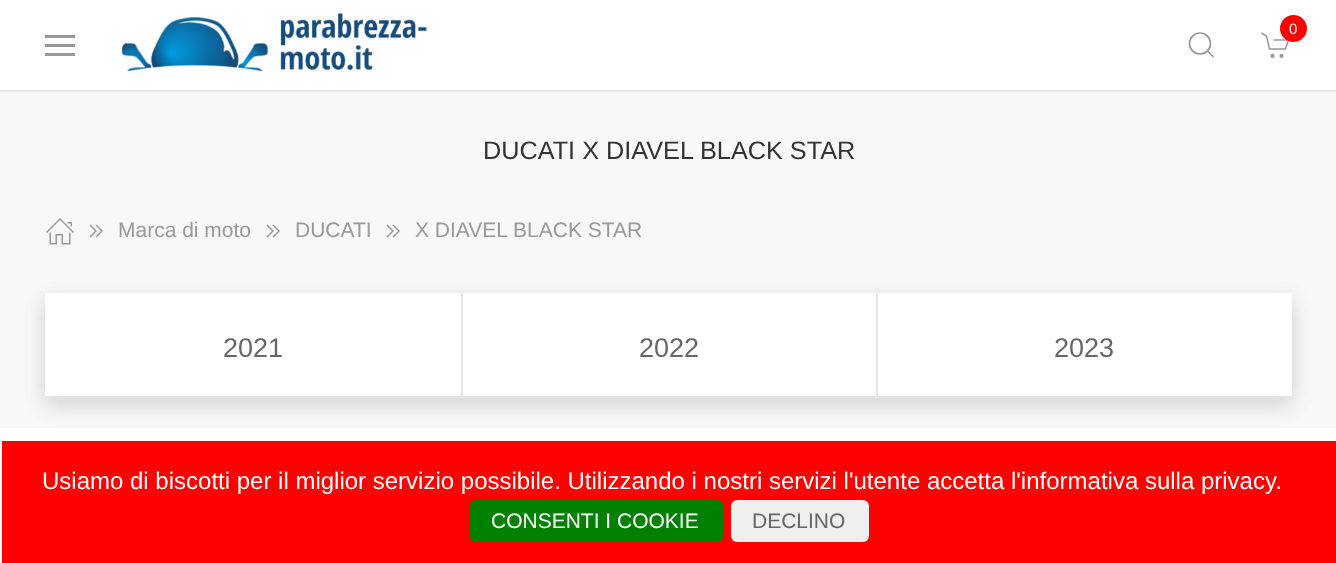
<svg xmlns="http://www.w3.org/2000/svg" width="1336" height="563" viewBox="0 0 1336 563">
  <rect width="100%" height="100%" fill="#f8f8f8"/>
  <path d="M0 0h1336v90H0z" fill="#fff"/>
  <path d="M0 90h1336v2H0z" fill="#e5e5e5"/>
  <path d="M45 44h30v3H45z" fill="#999"/>
  <path d="M45 35h30v3H45z" fill="#999"/>
  <path d="M45 53h30v3H45z" fill="#999"/>
  <image x="122" y="13" width="305" height="59" href="img/1.png"/>
  <path d="M1261.5 33L1266.5 36L1269.5 49H1285.5L1288.5 40H1273.5" fill="none" stroke="#999" stroke-width="1.5"/>
  <circle cx="1293.5" cy="28.5" r="13.5" fill="#f00"/>
  <circle cx="1272.5" cy="55.9" r="2.1" fill="#999"/>
  <circle cx="1281.5" cy="55.9" r="2.1" fill="#999"/>
  <circle cx="1200" cy="43.5" r="10.5" fill="none" stroke="#999" stroke-width="1.7"/>
  <path d="M1207.5 51L1213.5 57Z" fill="none" stroke="#999" stroke-width="1.7"/>
  <image x="46" y="218" width="28" height="27" href="img/2.png"/>
  <image x="89" y="224" width="14" height="14" href="img/3.png"/>
  <image x="266" y="224" width="14" height="14" href="img/3.png"/>
  <image x="386" y="224" width="14" height="14" href="img/3.png"/>
  <path d="M0 428h1336v135H0z" fill="#fff"/>
  <rect x="45" y="300" width="1247" height="105" rx="6" fill="#00000014" filter="blur(11px)"/>
  <rect x="45" y="300" width="1247" height="105" rx="6" fill="#00000014" filter="blur(11px)"/>
  <path d="M463 293h413v103H463z" fill="#fff"/>
  <path d="M45 293h416v103H45z" fill="#fff"/>
  <path d="M45 396h1247v2H45z" fill="#e5e5e5"/>
  <path d="M461 293h2v105H461z" fill="#e5e5e5"/>
  <path d="M878 293h414v103H878z" fill="#fff"/>
  <path d="M876 293h2v105H876z" fill="#e5e5e5"/>
  <path d="M2 441h1334v122H2z" fill="#f00"/>
  <rect x="470" y="500" width="253" height="42" rx="6" fill="#008000"/>
  <rect x="731" y="500" width="138" height="42" rx="6" fill="#efefef"/>
  <text x="1289" y="34" font-family="Liberation Sans" font-size="15" fill="#fff">0</text>
  <text x="483" y="159" font-family="Liberation Sans" font-size="25.25" fill="#333">DUCATI X DIAVEL BLACK STAR</text>
  <g font-family="Liberation Sans" font-size="21" fill="#999">
    <text x="118" y="237">Marca di moto</text>
    <text x="295" y="237">DUCATI</text>
    <text x="415" y="237">X DIAVEL BLACK STAR</text>
  </g>
  <g font-family="Liberation Sans" font-size="27" fill="#666">
    <text x="223" y="357">2021</text>
    <text x="639" y="357">2022</text>
    <text x="1054" y="357">2023</text>
  </g>
  <text x="42" y="489" font-family="Liberation Sans" font-size="24" fill="#fff">Usiamo di biscotti per il miglior servizio possibile. Utilizzando i nostri servizi l'utente accetta l'informativa sulla privacy.</text>
  <text x="491" y="528" font-family="Liberation Sans" font-size="21" fill="#fff">CONSENTI I COOKIE</text>
  <text x="752" y="528" font-family="Liberation Sans" font-size="21" fill="#666">DECLINO</text>
</svg>
